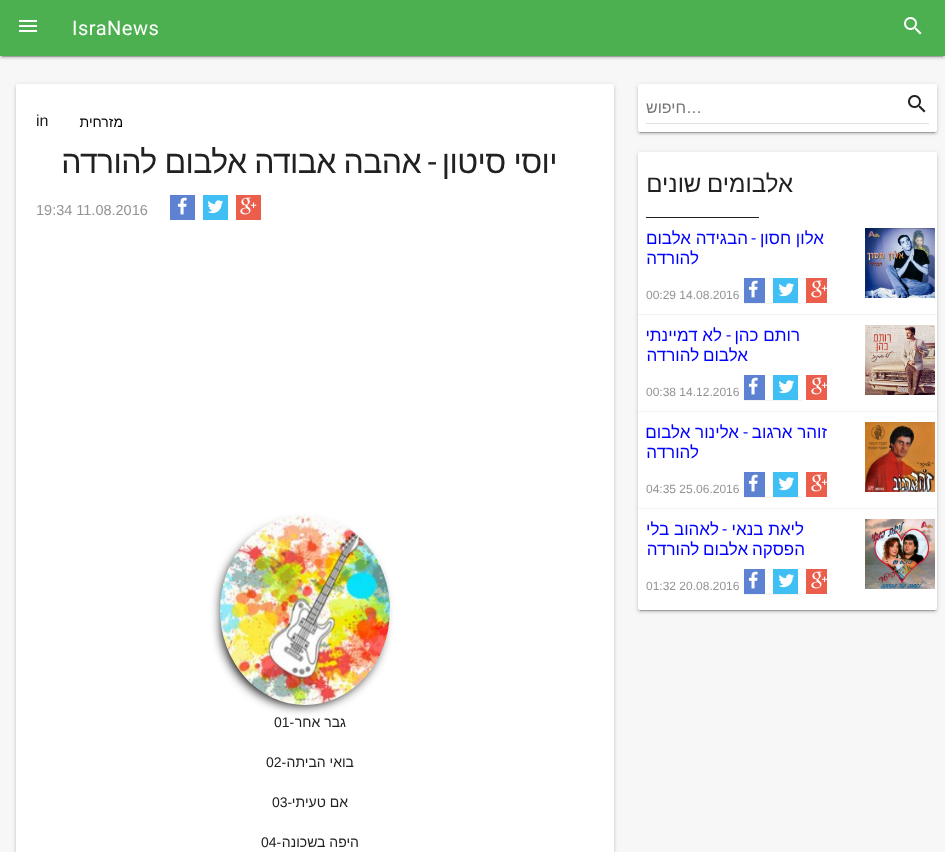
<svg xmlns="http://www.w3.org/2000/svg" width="945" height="852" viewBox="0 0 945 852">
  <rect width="100%" height="100%" fill="#f7f7f7"/>
  <path d="M0 1h945v56H0z" fill="#0000001f" filter="blur(2.5px)"/>
  <path d="M2 5h941v52H2z" fill="#00000033" filter="blur(0.5px)"/>
  <path d="M0 2h945v56H0z" fill="#00000024" filter="blur(1px)"/>
  <path d="M0 0h945v56H0z" fill="#4caf50"/>
  <image x="904" y="17" width="18" height="18" href="img/1.png"/>
  <image x="19" y="20" width="18" height="12" href="img/2.png"/>
  <rect x="638" y="85" width="299" height="48" rx="2" fill="#0000001f" filter="blur(2.5px)"/>
  <path d="M640 89h295v44H640z" fill="#00000033" filter="blur(0.5px)"/>
  <rect x="638" y="86" width="299" height="48" rx="2" fill="#00000024" filter="blur(1px)"/>
  <rect x="638" y="84" width="299" height="48" rx="2" fill="#fff"/>
  <image x="908" y="95" width="18" height="18" href="img/3.png"/>
  <path d="M646 123h283v1H646z" fill="#e0e0e0"/>
  <rect x="638" y="153" width="299" height="458" rx="2" fill="#0000001f" filter="blur(2.5px)"/>
  <path d="M640 157h295v454H640z" fill="#00000033" filter="blur(0.5px)"/>
  <rect x="638" y="154" width="299" height="458" rx="2" fill="#00000024" filter="blur(1px)"/>
  <rect x="638" y="152" width="299" height="458" rx="2" fill="#fff"/>
  <path d="M646 217h113v1H646z" fill="#212121"/>
  <path d="M638 314h299v1H638z" fill="#f2f2f2"/>
  <image x="865" y="228" width="70" height="70" href="img/4.png"/>
  <path d="M744 303h58v1H744z" fill="#f2f2f2"/>
  <path d="M744 278h21v25H744z" fill="#5d82d1"/>
  <image x="748" y="280" width="10" height="18" href="img/5.png"/>
  <path d="M806 278h21v25H806z" fill="#eb5e4c"/>
  <image x="811" y="280" width="16" height="18" href="img/6.png"/>
  <path d="M773 278h25v25H773z" fill="#40bff5"/>
  <image x="778" y="283" width="17" height="14" href="img/7.png"/>
  <path d="M638 411h299v1H638z" fill="#f2f2f2"/>
  <image x="865" y="325" width="70" height="70" href="img/8.png"/>
  <path d="M744 400h58v1H744z" fill="#f2f2f2"/>
  <path d="M744 375h21v25H744z" fill="#5d82d1"/>
  <image x="748" y="377" width="10" height="18" href="img/5.png"/>
  <path d="M806 375h21v25H806z" fill="#eb5e4c"/>
  <image x="811" y="377" width="16" height="18" href="img/6.png"/>
  <path d="M773 375h25v25H773z" fill="#40bff5"/>
  <image x="778" y="380" width="17" height="14" href="img/7.png"/>
  <path d="M638 508h299v1H638z" fill="#f2f2f2"/>
  <image x="865" y="422" width="70" height="70" href="img/9.png"/>
  <path d="M744 497h58v1H744z" fill="#f2f2f2"/>
  <path d="M744 472h21v25H744z" fill="#5d82d1"/>
  <image x="748" y="474" width="10" height="18" href="img/5.png"/>
  <path d="M806 472h21v25H806z" fill="#eb5e4c"/>
  <image x="811" y="474" width="16" height="18" href="img/6.png"/>
  <path d="M773 472h25v25H773z" fill="#40bff5"/>
  <image x="778" y="477" width="17" height="14" href="img/7.png"/>
  <image x="865" y="519" width="70" height="70" href="img/10.png"/>
  <path d="M744 594h58v1H744z" fill="#f2f2f2"/>
  <path d="M744 569h21v25H744z" fill="#5d82d1"/>
  <image x="748" y="571" width="10" height="18" href="img/5.png"/>
  <path d="M806 569h21v25H806z" fill="#eb5e4c"/>
  <image x="811" y="571" width="16" height="18" href="img/6.png"/>
  <path d="M773 569h25v25H773z" fill="#40bff5"/>
  <image x="778" y="574" width="17" height="14" href="img/7.png"/>
  <rect x="16" y="85" width="598" height="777" rx="2" fill="#0000001f" filter="blur(2.5px)"/>
  <rect x="16" y="86" width="598" height="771" rx="2" fill="#00000024" filter="blur(1px)"/>
  <path d="M18 84H612C613 84 614 85 614 86V852H16V86C16 85 17 84 18 84Z" fill="#fff"/>
  <path d="M236 195h25v25H236z" fill="#eb5e4c"/>
  <image x="240" y="197" width="17" height="18" href="img/11.png"/>
  <path d="M203 195h25v25H203z" fill="#40bff5"/>
  <image x="207" y="200" width="17" height="14" href="img/7.png"/>
  <path d="M170 195h25v25H170z" fill="#5d82d1"/>
  <image x="177" y="197" width="10" height="18" href="img/5.png"/>
  <rect x="222" y="525" width="160" height="180" rx="80" fill="#000" filter="blur(5.5px)"/>
  <image x="220" y="515" width="170" height="190" href="img/12.png"/>
  <text x="72" y="35" font-family="Roboto" font-size="20" letter-spacing="0.5" fill="#fff">IsraNews</text>
  <text x="686" y="113" font-family="Liberation Sans" font-size="16" fill="#757575">…</text>
  <text x="686" y="113" font-family="Liberation Sans" font-size="16" direction="rtl" fill="#757575">חיפוש</text>
  <text x="793" y="192" word-spacing="-1" font-family="Liberation Sans" font-size="24" direction="rtl" fill="#212121">אלבומים שונים</text>
  <text x="824" y="244" font-family="Liberation Sans" font-size="17" direction="rtl" fill="#00f">אלון חסון</text>
  <text x="756" y="244" font-family="Roboto" font-size="17" direction="rtl" fill="#00f">-</text>
  <g font-family="Liberation Sans" font-size="17" direction="rtl" fill="#00f">
    <text x="748" y="244">הבגידה אלבום</text>
    <text x="699" y="264">להורדה</text>
  </g>
  <text x="646" y="299" font-family="Liberation Sans" font-size="12" fill="#949494">00:29 14.08.2016</text>
  <text x="800" y="341" font-family="Liberation Sans" font-size="17" direction="rtl" fill="#00f">רותם כהן</text>
  <text x="731" y="341" font-family="Roboto" font-size="17" direction="rtl" fill="#00f">-</text>
  <g font-family="Liberation Sans" font-size="17" direction="rtl" fill="#00f">
    <text x="722" y="341">לא דמיינתי</text>
    <text x="748" y="361" word-spacing="-1">אלבום להורדה</text>
  </g>
  <text x="646" y="396" font-family="Liberation Sans" font-size="12" fill="#949494">00:38 14.12.2016</text>
  <text x="827" y="438" font-family="Liberation Sans" font-size="17" direction="rtl" fill="#00f">זוהר ארגוב</text>
  <text x="748" y="438" font-family="Roboto" font-size="17" direction="rtl" fill="#00f">-</text>
  <g font-family="Liberation Sans" font-size="17" direction="rtl" fill="#00f">
    <text x="739" y="438">אלינור אלבום</text>
    <text x="699" y="458">להורדה</text>
  </g>
  <text x="646" y="493" font-family="Liberation Sans" font-size="12" fill="#949494">04:35 25.06.2016</text>
  <text x="804" y="535" font-family="Liberation Sans" font-size="17" direction="rtl" fill="#00f">ליאת בנאי</text>
  <text x="727" y="535" font-family="Roboto" font-size="17" direction="rtl" fill="#00f">-</text>
  <g font-family="Liberation Sans" font-size="17" direction="rtl" fill="#00f">
    <text x="719" y="535">לאהוב בלי</text>
    <text x="805" y="555" word-spacing="-1">הפסקה אלבום להורדה</text>
  </g>
  <text x="646" y="590" font-family="Liberation Sans" font-size="12" fill="#949494">01:32 20.08.2016</text>
  <text x="123" y="127" font-family="Liberation Sans" font-size="14" direction="rtl" fill="#000">מזרחית</text>
  <text x="36" y="126" font-family="Liberation Sans" font-size="16" fill="#212121">in</text>
  <text x="557" y="173" word-spacing="-0.5" font-family="Liberation Sans" font-size="32" letter-spacing="-0.6" direction="rtl" fill="#212121">יוסי סיטון</text>
  <text x="436" y="173" font-family="Roboto" font-size="32" letter-spacing="-0.6" direction="rtl" fill="#212121">-</text>
  <text x="421" y="173" word-spacing="-0.5" font-family="Liberation Sans" font-size="32" letter-spacing="-0.6" direction="rtl" fill="#212121">אהבה אבודה אלבום להורדה</text>
  <text x="36" y="215" font-family="Liberation Sans" font-size="14.5" fill="#949494">19:34 11.08.2016</text>
  <text x="346" y="727" font-family="Liberation Sans" font-size="14" direction="rtl" fill="#212121">גבר אחר</text>
  <text x="274" y="727" font-family="Liberation Sans" font-size="14" fill="#212121">01-</text>
  <text x="354" y="767" font-family="Liberation Sans" font-size="14" direction="rtl" fill="#212121">בואי הביתה</text>
  <text x="266" y="767" font-family="Liberation Sans" font-size="14" fill="#212121">02-</text>
  <text x="348" y="807" font-family="Liberation Sans" font-size="14" direction="rtl" fill="#212121">אם טעיתי</text>
  <text x="272" y="807" font-family="Liberation Sans" font-size="14" fill="#212121">03-</text>
  <text x="359" y="847" font-family="Liberation Sans" font-size="14" direction="rtl" fill="#212121">היפה בשכונה</text>
  <text x="261" y="847" font-family="Liberation Sans" font-size="14" fill="#212121">04-</text>
</svg>
